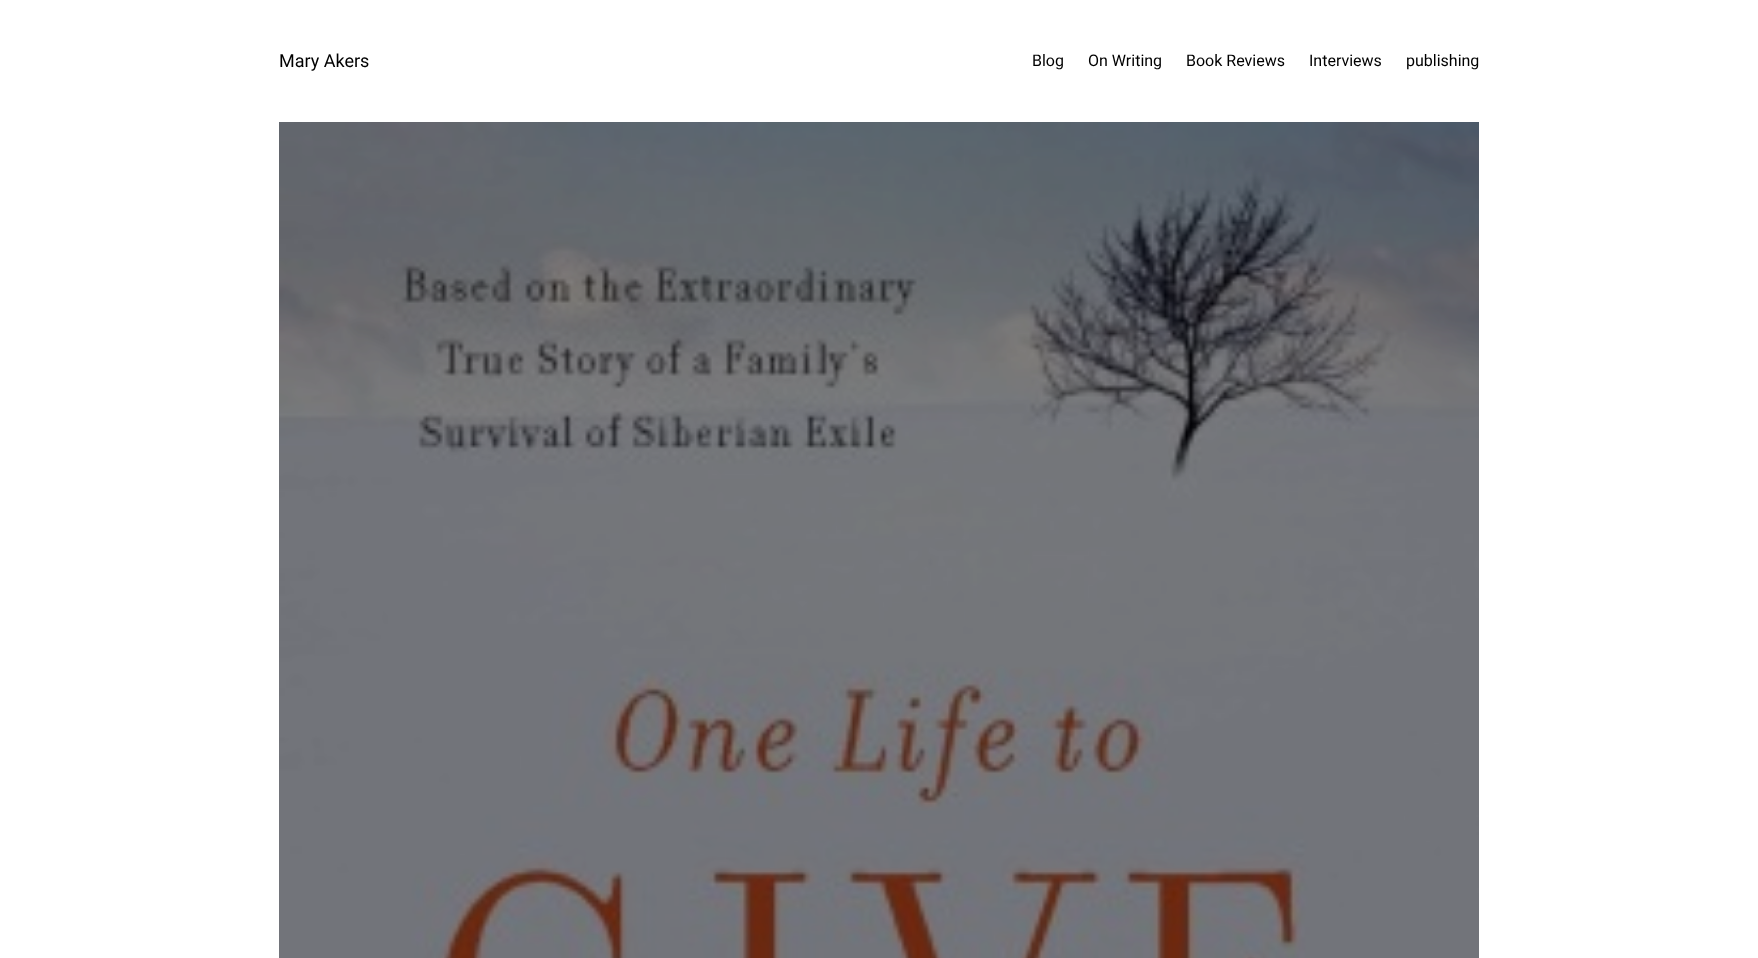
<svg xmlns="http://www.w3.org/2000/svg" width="1758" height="958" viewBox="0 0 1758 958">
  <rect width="100%" height="100%" fill="#fff"/>
  <image x="279" y="122" width="1200" height="836" href="img/1.png"/>
  <text x="279" y="67" font-family="Roboto" font-size="18" fill="#000">Mary Akers</text>
  <g font-family="Roboto" font-size="16" fill="#000">
    <text x="1032" y="66">Blog</text>
    <text x="1088" y="66">On Writing</text>
    <text x="1186" y="66">Book Reviews</text>
    <text x="1309" y="66">Interviews</text>
    <text x="1406" y="66">publishing</text>
  </g>
</svg>
